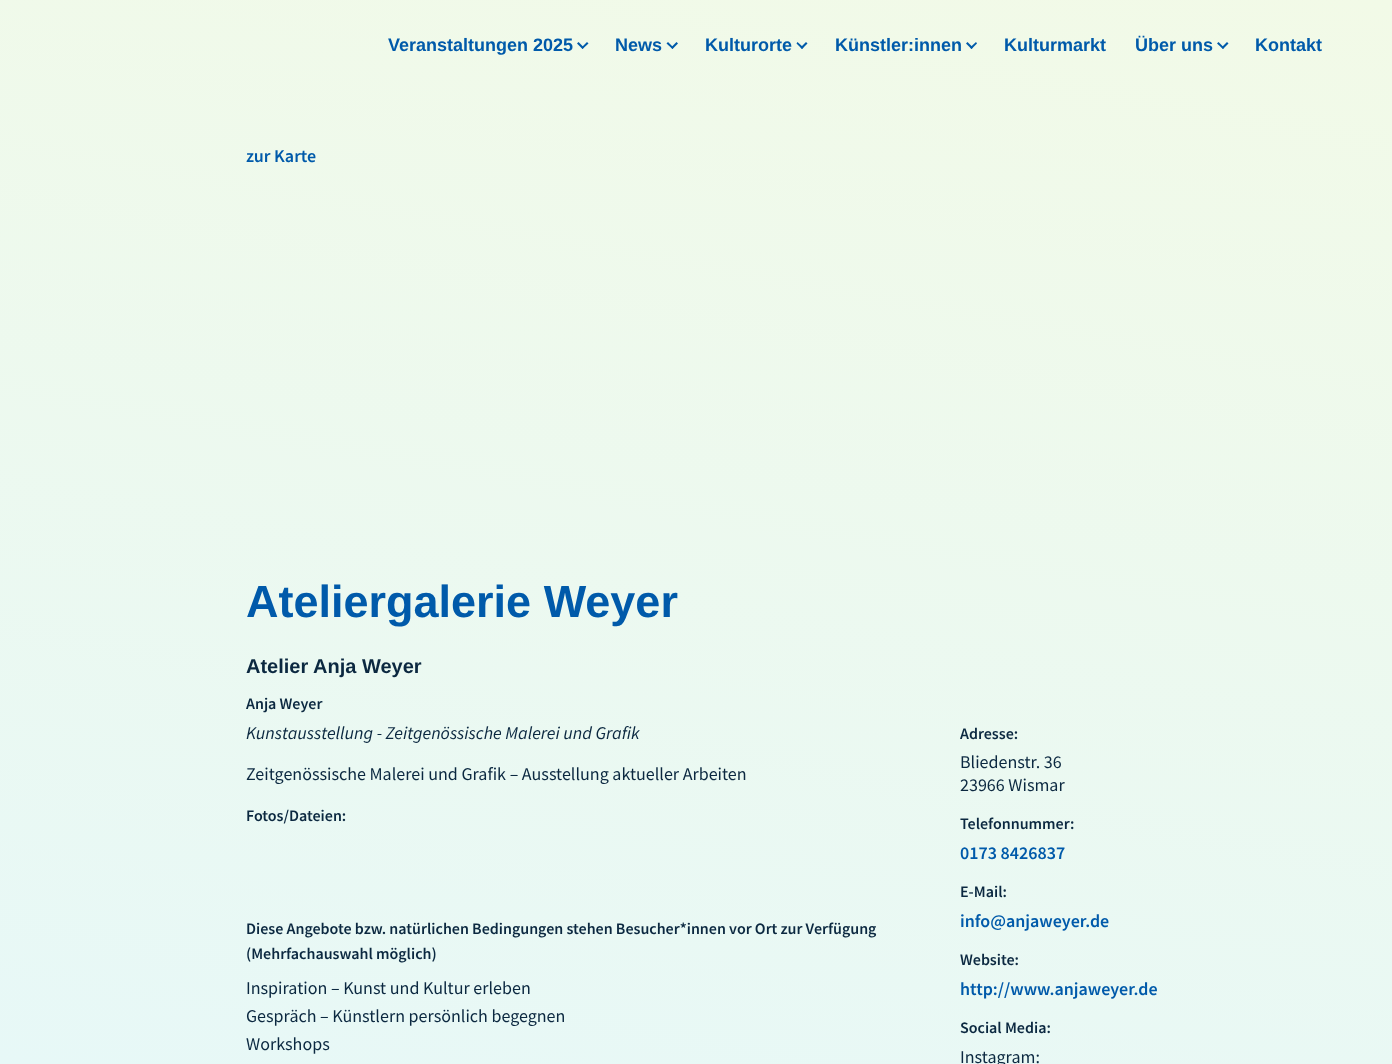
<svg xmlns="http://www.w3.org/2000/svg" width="1392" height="1064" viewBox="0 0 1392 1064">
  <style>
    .t1 { font: bold 18px Liberation Sans; fill: #005aaa; }
    .t2 { font: 600 18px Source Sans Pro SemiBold; fill: #005aaa; }
    .t3 { font: bold 45px Liberation Sans; fill: #005aaa; }
    .t4 { font: bold 20px Liberation Sans; fill: #0b2840; }
    .t5 { font: 600 16px Source Sans Pro SemiBold; fill: #0b2840; }
    .t6 { font: italic 18px Source Sans Pro; fill: #0b2840; }
    .t7 { font: 18px Source Sans Pro; fill: #0b2840; }
  </style>
  <defs>
    <linearGradient id="g1" gradientUnits="userSpaceOnUse" x1="584" y1="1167" x2="808" y2="-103"><stop offset="0" stop-color="#e7f8f7"/><stop offset="1" stop-color="#f2fae7"/></linearGradient>
  </defs>
  <rect width="100%" height="100%" fill="#fff"/>
  <rect x="0" y="0" width="1392" height="1064" fill="url(#g1)"/>
  <text x="388" y="51" class="t1">Veranstaltungen 2025</text>
  <path d="M587 42L588.5 43.5L582.5 49L581.5 47.5Z" fill="#005aaa"/>
  <path d="M578.5 42L584 47.5L582.5 49L577 43.5Z" fill="#005aaa"/>
  <text x="615" y="51" class="t1">News</text>
  <path d="M676.5 42L678 43.5L672.5 49L671 47.5Z" fill="#005aaa"/>
  <path d="M668 42L673.5 47.5L672.5 49L666.5 43.5Z" fill="#005aaa"/>
  <text x="705" y="51" class="t1">Kulturorte</text>
  <path d="M806 42L807.5 43.5L802 49L800.5 47.5Z" fill="#005aaa"/>
  <path d="M797.5 42L803.5 47.5L802 49L796.5 43.5Z" fill="#005aaa"/>
  <text x="835" y="51" class="t1">Künstler:innen</text>
  <path d="M976 42L977 43.5L971.5 49L970 47.5Z" fill="#005aaa"/>
  <path d="M967.5 42L973 47.5L971.5 49L966 43.5Z" fill="#005aaa"/>
  <text x="1004" y="51" class="t1">Kulturmarkt</text>
  <text x="1135" y="51" class="t1">Über uns</text>
  <path d="M1227 42L1228.5 43.5L1223 49L1221.5 47.5Z" fill="#005aaa"/>
  <path d="M1218.5 42L1224 47.5L1223 49L1217 43.5Z" fill="#005aaa"/>
  <text x="1255" y="51" class="t1">Kontakt</text>
  <text x="246" y="162" class="t2">zur Karte</text>
  <text x="246" y="617" class="t3">Ateliergalerie Weyer</text>
  <text x="246" y="673" class="t4">Atelier Anja Weyer</text>
  <text x="246" y="709" class="t5">Anja Weyer</text>
  <text x="246" y="739" class="t6">Kunstausstellung - Zeitgenössische Malerei und Grafik</text>
  <text x="246" y="780" class="t7">Zeitgenössische Malerei und Grafik – Ausstellung aktueller Arbeiten</text>
  <text x="246" y="821" class="t5">Fotos/Dateien:</text>
  <text x="246" y="934" class="t5">Diese Angebote bzw. natürlichen Bedingungen stehen Besucher*innen vor Ort zur Verfügung</text>
  <text x="246" y="959" class="t5">(Mehrfachauswahl möglich)</text>
  <text x="246" y="994" class="t7">Inspiration – Kunst und Kultur erleben</text>
  <text x="246" y="1022" class="t7">Gespräch – Künstlern persönlich begegnen</text>
  <text x="246" y="1050" class="t7">Workshops</text>
  <text x="960" y="739" class="t5">Adresse:</text>
  <text x="960" y="768" class="t7">Bliedenstr. 36</text>
  <text x="960" y="791" class="t7">23966 Wismar</text>
  <text x="960" y="829" class="t5">Telefonnummer:</text>
  <text x="960" y="859" class="t2">0173 8426837</text>
  <text x="960" y="897" class="t5">E-Mail:</text>
  <text x="960" y="927" class="t2">info@anjaweyer.de</text>
  <text x="960" y="965" class="t5">Website:</text>
  <text x="960" y="995" class="t2">http://www.anjaweyer.de</text>
  <text x="960" y="1033" class="t5">Social Media:</text>
  <text x="960" y="1063" class="t7">Instagram:</text>
</svg>
